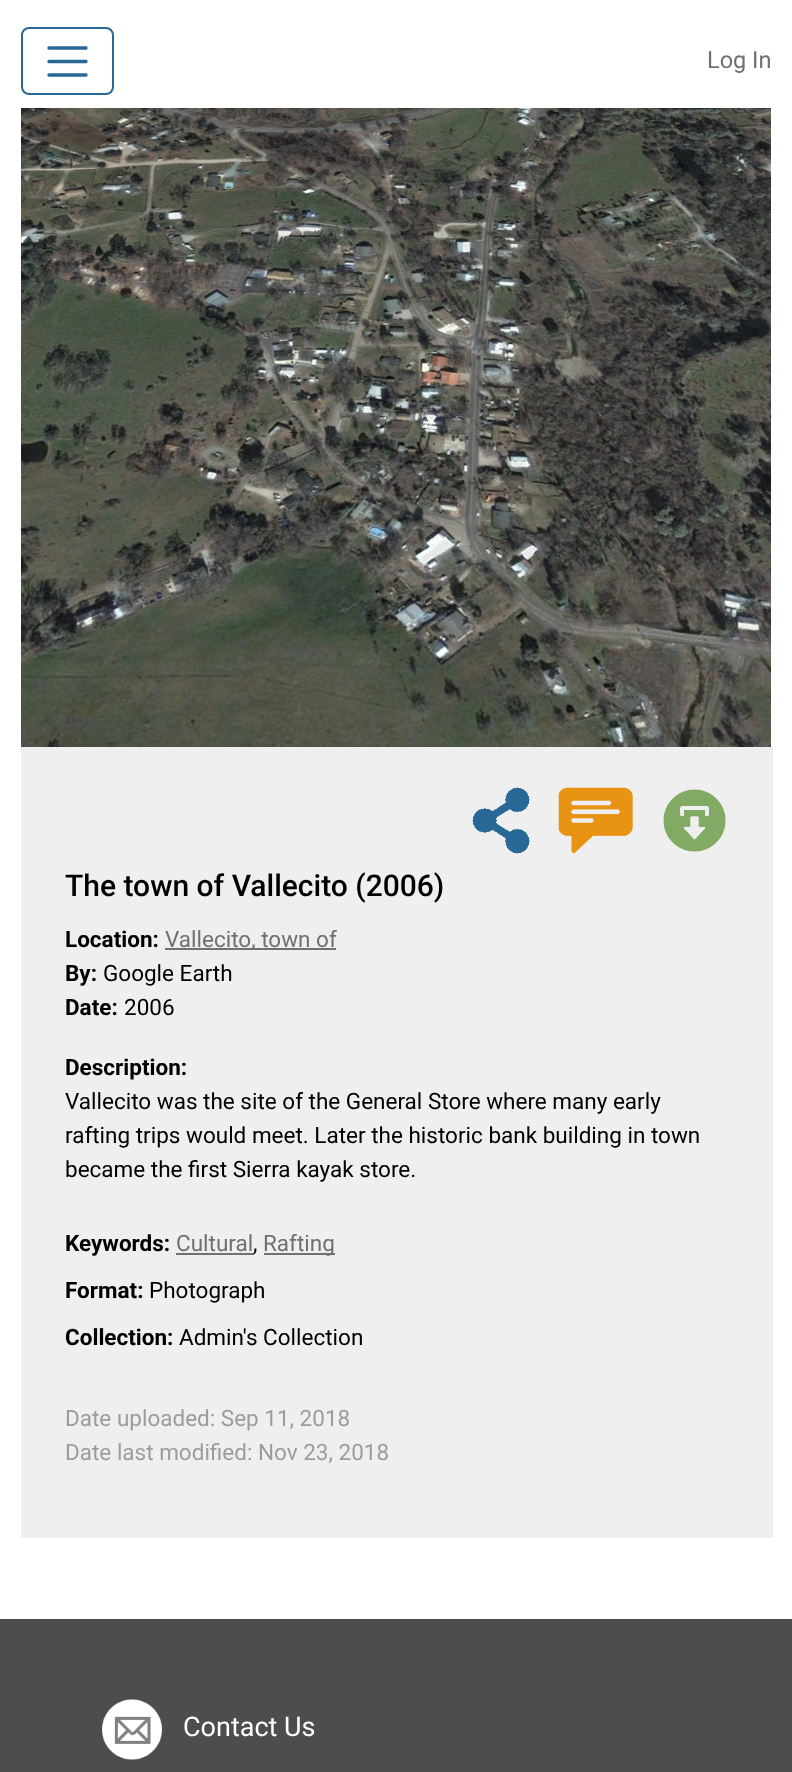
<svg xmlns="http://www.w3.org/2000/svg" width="792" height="1772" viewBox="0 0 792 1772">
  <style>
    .t1 { font: 23.5px Roboto; fill: #707070; }
    .t2 { font: 500 30px Roboto; fill: #000; }
    .t3 { font: bold 22.5px Roboto; fill: #000; }
    .t4 { font: 22.5px Roboto; fill: #707070; }
    .t5 { font: 22.5px Roboto; fill: #000; }
    .t6 { font: 22.5px Roboto; fill: #9c9c9c; }
    .t7 { font: 27px Roboto; fill: #fff; }
  </style>
  <rect width="100%" height="100%" fill="#fff"/>
  <rect x="22" y="28" width="91" height="66" rx="7" fill="none" stroke="#276896" stroke-width="2"/>
  <path d="M49 48H86M49 61.5H86M49 75H86" fill="none" stroke="#276896" stroke-width="3.4" stroke-linecap="round"/>
  <text x="707" y="68" class="t1">Log In</text>
  <image x="21" y="108" width="750" height="639" href="images/1.png"/>
  <rect x="21" y="747" width="752" height="791" fill="#efefef"/>
  <image x="472" y="787" width="58" height="67" href="images/2.png"/>
  <image x="558" y="787" width="75" height="67" href="images/3.png"/>
  <image x="663" y="789" width="63" height="63" href="images/4.png"/>
  <text x="65" y="896" class="t2">The town of Vallecito (2006)</text>
  <text x="65" y="947" class="t3">Location:</text>
  <rect x="165" y="948" width="171" height="2" fill="#707070"/>
  <text x="165" y="947" class="t4">Vallecito, town of</text>
  <text x="65" y="981" class="t3">By:</text>
  <text x="103" y="981" class="t5">Google Earth</text>
  <text x="65" y="1015" class="t3">Date:</text>
  <text x="124" y="1015" class="t5">2006</text>
  <text x="65" y="1075" class="t3">Description:</text>
  <text x="65" y="1109" class="t5">Vallecito was the site of the General Store where many early</text>
  <text x="65" y="1143" class="t5">rafting trips would meet. Later the historic bank building in town</text>
  <text x="65" y="1177" class="t5">became the first Sierra kayak store.</text>
  <text x="65" y="1251" class="t3">Keywords:</text>
  <text x="176" y="1251" class="t4">Cultural</text>
  <rect x="176" y="1253" width="78" height="2" fill="#707070"/>
  <text x="253" y="1251" class="t5">,</text>
  <rect x="264" y="1253" width="71" height="2" fill="#707070"/>
  <text x="263" y="1251" class="t4">Rafting</text>
  <text x="65" y="1298" class="t3">Format:</text>
  <text x="149" y="1298" class="t5">Photograph</text>
  <text x="65" y="1345" class="t3">Collection:</text>
  <text x="179" y="1345" class="t5">Admin's Collection</text>
  <text x="65" y="1426" class="t6">Date uploaded: Sep 11, 2018</text>
  <text x="65" y="1460" class="t6">Date last modified: Nov 23, 2018</text>
  <rect x="0" y="1619" width="792" height="153" fill="#4d4d4d"/>
  <image x="102" y="1699" width="60" height="61" href="images/5.png"/>
  <text x="183" y="1736" class="t7">Contact Us</text>
</svg>
